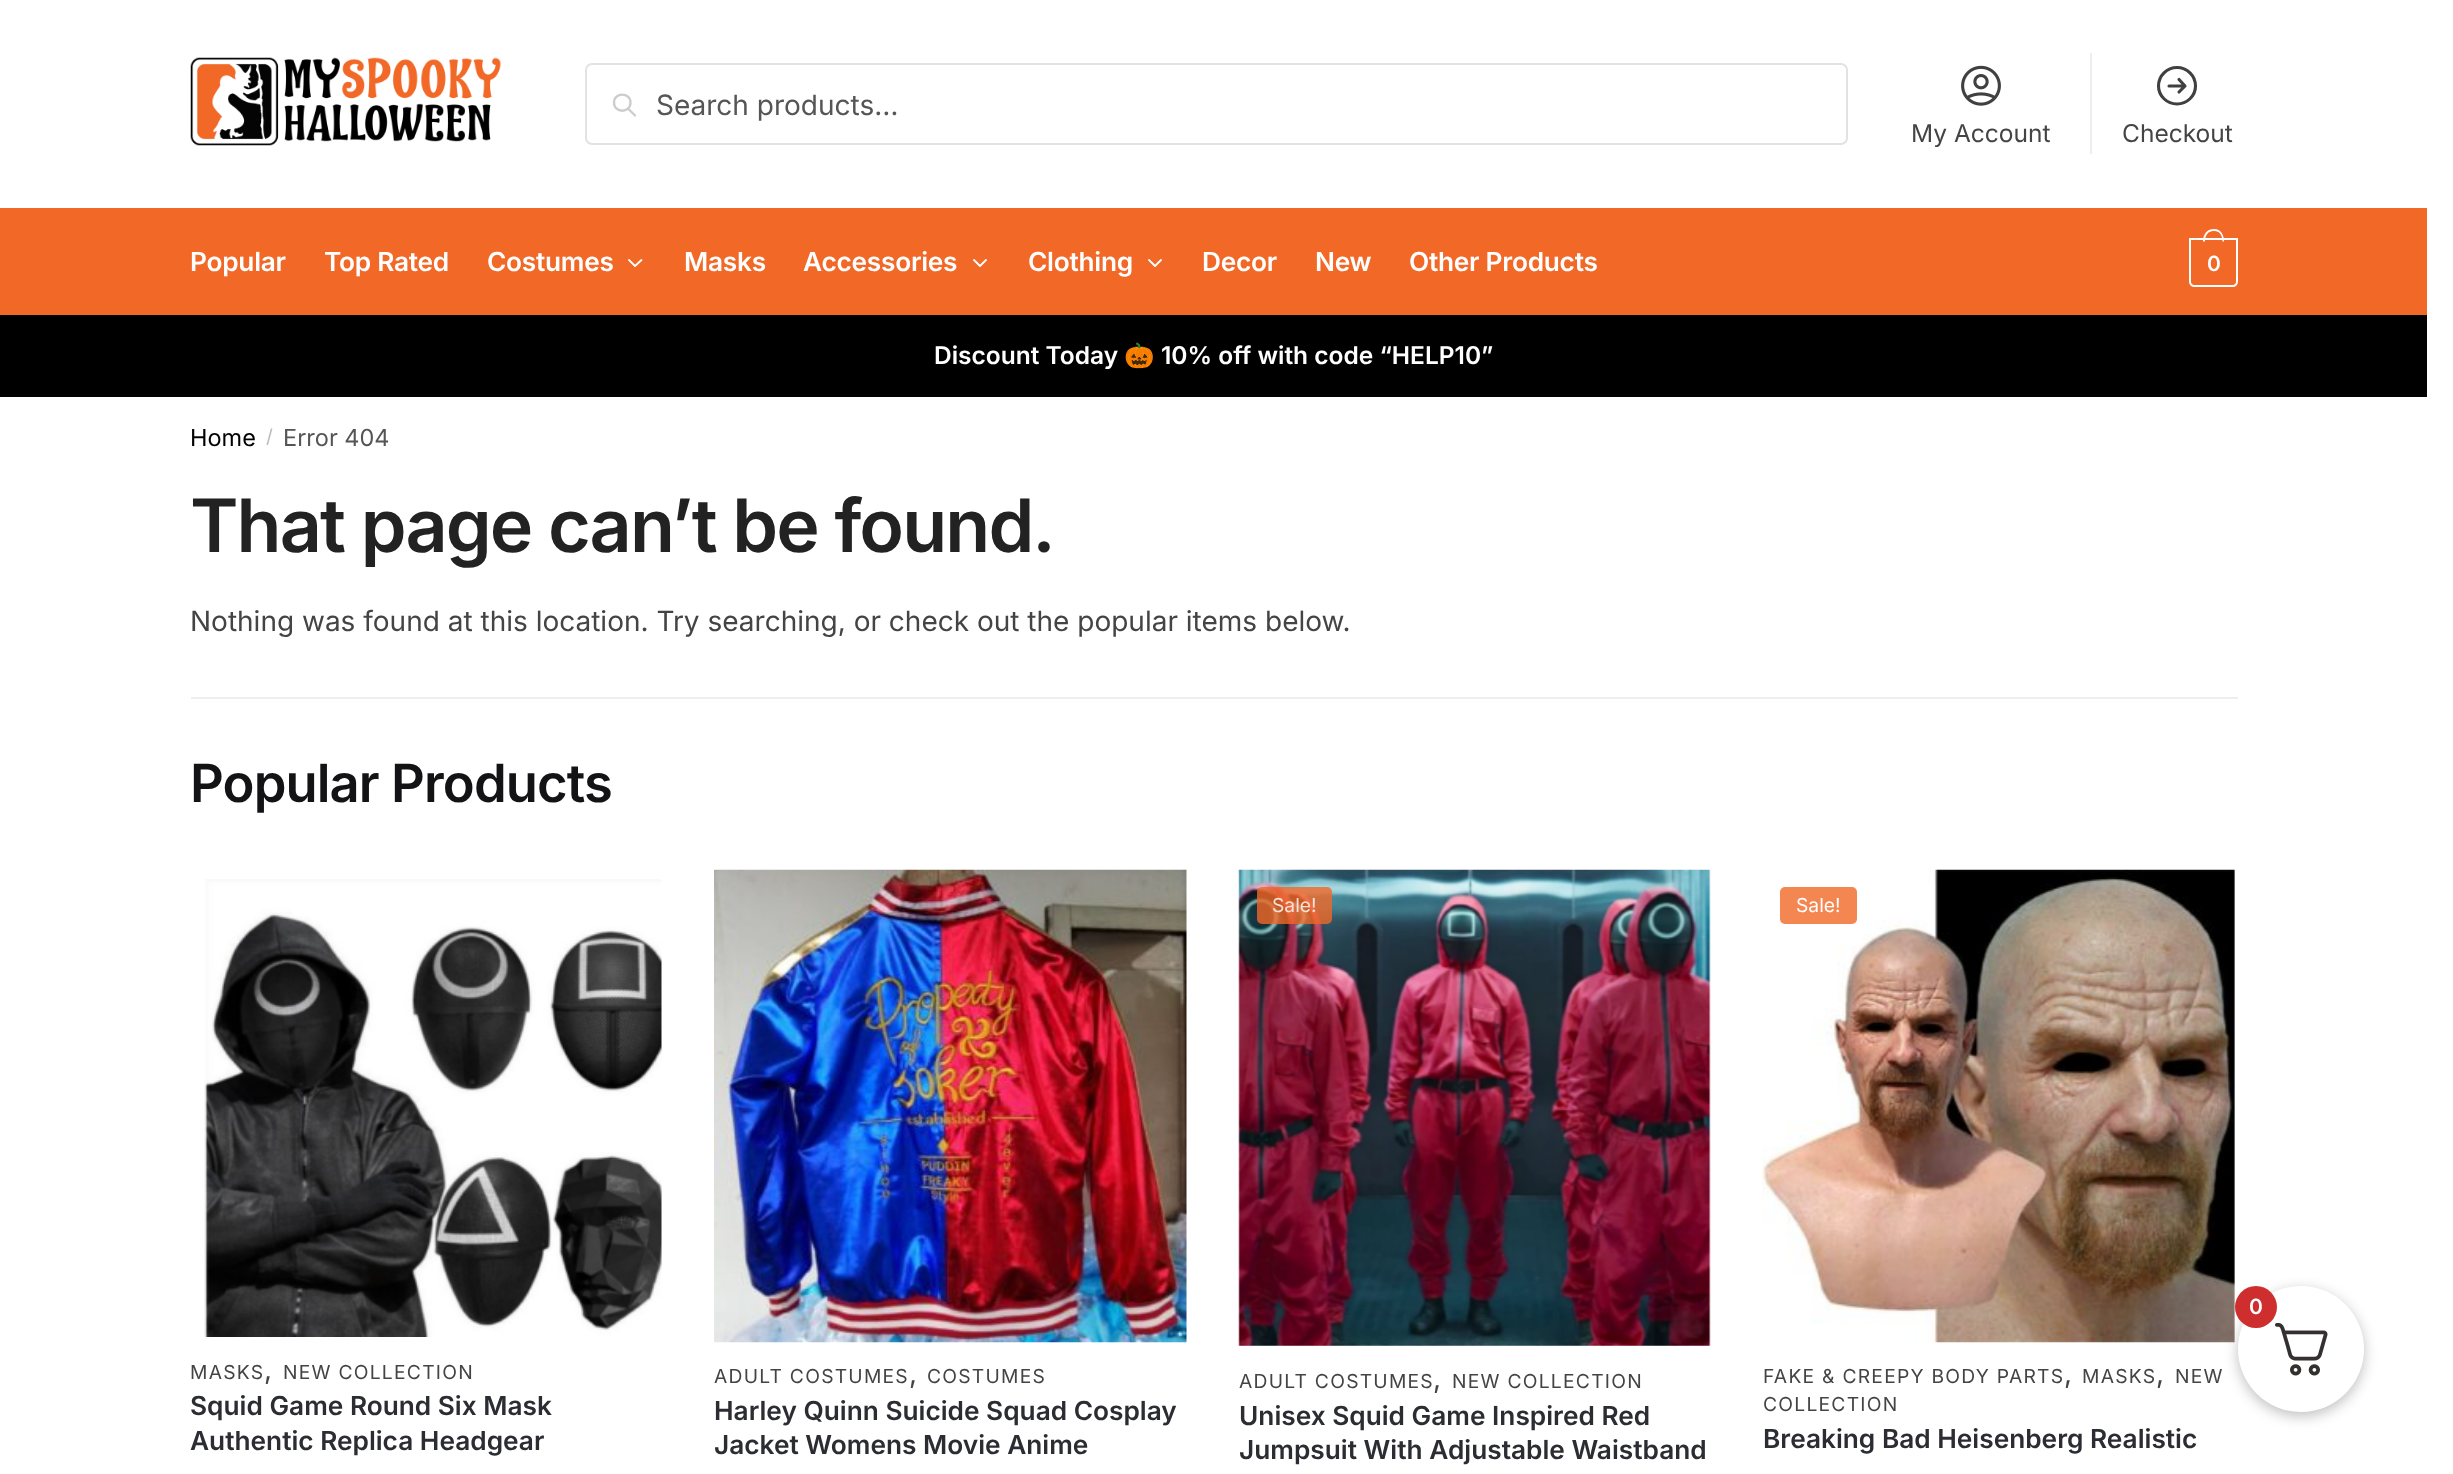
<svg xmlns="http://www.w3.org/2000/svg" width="2453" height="1474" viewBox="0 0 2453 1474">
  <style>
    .t1 { font: 28px Inter; fill: #555; }
    .t2 { font: 24.5px Inter; fill: #444; }
    .t3 { font: 600 26.25px Inter; letter-spacing: -0.25px; fill: #fff; }
    .t4 { font: 600 21px Inter; letter-spacing: -1px; fill: #fff; }
    .t5 { font: 600 24.5px Inter; fill: #fff; }
    .t6 { font: bold 24.5px Noto Color Emoji; fill: #fff; }
    .t7 { font: 23.5px Inter; fill: #000; }
    .t8 { font: 19px Inter; fill: #bbb; }
    .t9 { font: 23.5px Inter; fill: #555; }
    .t10 { font: 600 73.5px Inter; letter-spacing: -1.9px; fill: #222; }
    .t11 { font: 28px Inter; fill: #444; }
    .t12 { font: 600 52.5px Inter; letter-spacing: -0.9px; fill: #131315; }
    .t13 { font: 19.25px Inter; letter-spacing: 1.25px; fill: #444; }
    .t14 { font: 28px Inter; letter-spacing: 1.25px; fill: #444; }
    .t15 { font: 600 26.25px Inter; fill: #2c2d33; }
    .t16 { font: 19.25px Inter; fill: #f7e1d7; }
    .t17 { font: 19.25px Inter; fill: #fff; }
    .t18 { font: 600 21px Inter; fill: #fff; }
  </style>
  <rect width="100%" height="100%" fill="#fff"/>
  <image x="190" y="57" width="311" height="89" href="images/1.png"/>
  <rect x="586" y="64" width="1261" height="80" rx="6" fill="none" stroke="#e2e2e2" stroke-width="2"/>
  <path d="M635 115.5L628 108.5M630.5 102.5C630.5 113.5 614 113.5 614 102.5C614 92 630.5 92 630.5 102.5Z" fill="none" stroke="#ccc" stroke-width="2.3" stroke-linecap="round" stroke-linejoin="round"/>
  <text x="656" y="115" class="t1">Search products…</text>
  <image x="1961" y="65" width="40" height="41" href="images/2.png"/>
  <text x="1911" y="142" class="t2">My Account</text>
  <rect x="2090" y="53" width="2" height="101" fill="#eee"/>
  <path d="M2179 79.5L2185 86M2185 86L2179 92M2185 86H2169M2195.5 86C2195.5 96 2187 104 2177 104C2167 104 2158.5 96 2158.5 86C2158.5 75.5 2167 67.5 2177 67.5C2187 67.5 2195.5 75.5 2195.5 86Z" fill="none" stroke="#404040" stroke-width="3.1" stroke-linecap="round" stroke-linejoin="round"/>
  <text x="2122" y="142" class="t2">Checkout</text>
  <rect x="0" y="208" width="2427" height="107" fill="#f16827"/>
  <text x="190" y="271" class="t3">Popular</text>
  <text x="324" y="271" class="t3">Top Rated</text>
  <text x="487" y="271" class="t3">Costumes</text>
  <path d="M641.5 260L635 266L629 260" fill="none" stroke="#fff" stroke-width="1.8" stroke-linecap="round" stroke-linejoin="round"/>
  <text x="684" y="271" class="t3">Masks</text>
  <text x="803" y="271" class="t3">Accessories</text>
  <path d="M986 260L980 266L974 260" fill="none" stroke="#fff" stroke-width="1.8" stroke-linecap="round" stroke-linejoin="round"/>
  <text x="1028" y="271" class="t3">Clothing</text>
  <path d="M1161 260L1155 266L1149 260" fill="none" stroke="#fff" stroke-width="1.8" stroke-linecap="round" stroke-linejoin="round"/>
  <text x="1202" y="271" class="t3">Decor</text>
  <text x="1315" y="271" class="t3">New</text>
  <text x="1409" y="271" class="t3">Other Products</text>
  <path d="M2190 239H2237V282C2237 284 2235 286 2233 286H2194C2192 286 2190 284 2190 282Z" fill="none" stroke="#fff" stroke-width="2"/>
  <path d="M2214 229C2221 229 2224 235 2224 241.5H2203C2203 235 2206.5 229 2214 229ZM2214 231C2220 231 2222.5 236 2222.5 241.5H2205C2205 236 2207.5 231 2214 231Z" fill="#fff" fill-rule="evenodd"/>
  <text x="2207" y="271" class="t4">0</text>
  <rect x="0" y="315" width="2427" height="82" fill="#000"/>
  <text x="934" y="364" class="t5">Discount Today</text>
  <text x="1124" y="364" class="t6">🎃</text>
  <text x="1161" y="364" class="t5">10% off with code “HELP10”</text>
  <text x="190" y="446" class="t7">Home</text>
  <text x="266" y="443" class="t8">/</text>
  <text x="283" y="446" class="t9">Error 404</text>
  <text x="190" y="552" class="t10">That page can’t be found.</text>
  <text x="190" y="631" class="t11">Nothing was found at this location. Try searching, or check out the popular items below.</text>
  <rect x="191" y="697" width="2047" height="2" fill="#eee"/>
  <text x="190" y="802" class="t12">Popular Products</text>
  <image x="204" y="879" width="458" height="458" href="images/3.png"/>
  <text x="190" y="1379" class="t13">MASKS</text>
  <text x="264" y="1379" class="t14">,</text>
  <text x="283" y="1379" class="t13">NEW COLLECTION</text>
  <text x="190" y="1415" class="t15">Squid Game Round Six Mask</text>
  <text x="190" y="1450" class="t15">Authentic Replica Headgear</text>
  <image x="714" y="869" width="473" height="474" href="images/4.png"/>
  <text x="714" y="1383" class="t13">ADULT COSTUMES</text>
  <text x="909" y="1383" class="t14">,</text>
  <text x="927" y="1383" class="t13">COSTUMES</text>
  <text x="714" y="1420" class="t15">Harley Quinn Suicide Squad Cosplay</text>
  <text x="714" y="1454" class="t15">Jacket Womens Movie Anime</text>
  <image x="1238" y="869" width="473" height="477" href="images/5.png"/>
  <rect x="1257" y="887" width="75" height="37" rx="5" fill="#f16827cc"/>
  <text x="1272" y="912" class="t16">Sale!</text>
  <text x="1239" y="1388" class="t13">ADULT COSTUMES</text>
  <text x="1433" y="1388" class="t14">,</text>
  <text x="1452" y="1388" class="t13">NEW COLLECTION</text>
  <text x="1239" y="1425" class="t15">Unisex Squid Game Inspired Red</text>
  <text x="1239" y="1459" class="t15">Jumpsuit With Adjustable Waistband</text>
  <image x="1762" y="869" width="473" height="474" href="images/6.png"/>
  <rect x="1780" y="887" width="77" height="37" rx="5" fill="#f48652"/>
  <text x="1796" y="912" class="t17">Sale!</text>
  <text x="1763" y="1383" class="t13">FAKE &amp; CREEPY BODY PARTS</text>
  <text x="2082" y="1383" class="t13">MASKS</text>
  <text x="2175" y="1383" class="t13">NEW</text>
  <text x="2064" y="1383" class="t14">,</text>
  <text x="2156" y="1383" class="t14">,</text>
  <text x="1763" y="1411" class="t13">COLLECTION</text>
  <text x="1763" y="1448" class="t15">Breaking Bad Heisenberg Realistic</text>
  <rect x="2238" y="1290" width="126" height="126" rx="63" fill="#00000040" filter="blur(7px)"/>
  <circle cx="2301" cy="1349" r="63" fill="#fff"/>
  <image x="2275" y="1323" width="53" height="53" href="images/7.png"/>
  <circle cx="2256" cy="1307" r="21" fill="#cf2e2e"/>
  <text x="2249" y="1314" class="t18">0</text>
</svg>
